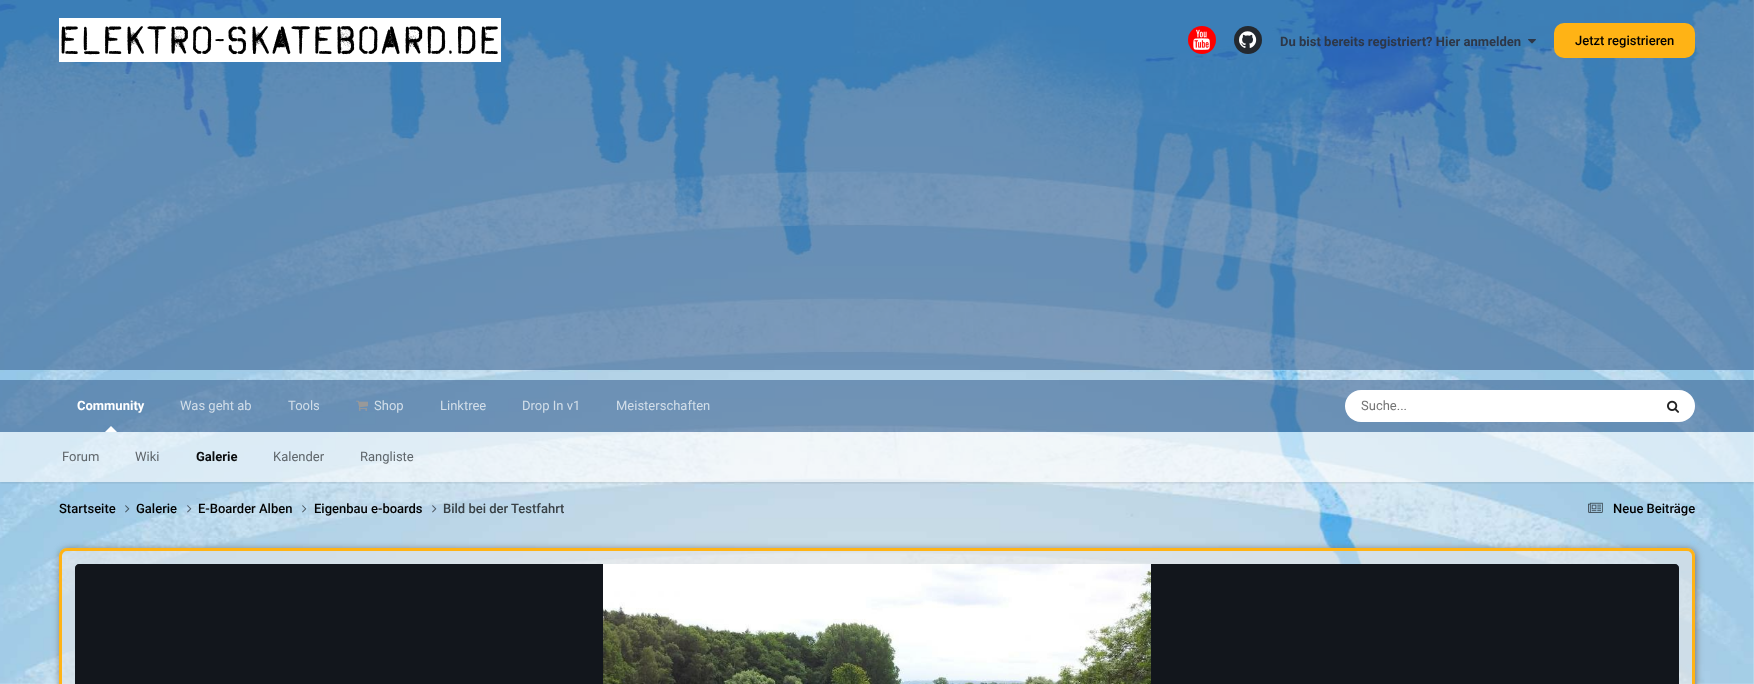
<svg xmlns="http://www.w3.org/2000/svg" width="1754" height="684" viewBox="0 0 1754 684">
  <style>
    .t1 { font: 40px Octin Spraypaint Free; letter-spacing: 2px; fill: #000; }
    .t2 { font: bold 13px Roboto; fill: #2d3748; }
    .t3 { font: 500 13px Roboto; fill: #000; }
    .t4 { font: bold 13px Roboto; fill: #fff; }
    .t5 { font: 13px Roboto; fill: #5f666b; }
    .t6 { font: bold 13px Roboto; fill: #0a0c0d; }
    .t7 { font: 13px Roboto; fill: #d2dee9; }
    .t8 { font: 13px Roboto; fill: #757575; }
    .t9 { font: 500 13px Roboto; fill: #384045; }
  </style>
  <defs>
    <clipPath id="clip1"><rect x="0" y="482" width="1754" height="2"/></clipPath>
    <clipPath id="clip2"><path d="M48 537H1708V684H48ZM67 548H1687C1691.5 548 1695 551.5 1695 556V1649C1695 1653.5 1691.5 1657 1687 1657H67C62.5 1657 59 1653.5 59 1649V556C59 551.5 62.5 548 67 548Z" clip-rule="evenodd"/></clipPath>
  </defs>
  <rect width="100%" height="100%" fill="#fff"/>
  <image x="0" y="0" width="1754" height="684" href="images/1.png"/>
  <rect x="0" y="0" width="1754" height="370" fill="#3d659499"/>
  <rect x="59" y="18" width="442" height="44" fill="#fff"/>
  <text x="59" y="54" class="t1">elektro-skateboard.de</text>
  <circle cx="1202" cy="40" r="14" fill="#f00"/>
  <image x="1193" y="29" width="17" height="21" href="images/2.png"/>
  <circle cx="1248" cy="40" r="14" fill="#24292f"/>
  <image x="1239" y="31" width="18" height="17" href="images/3.png"/>
  <text x="1280" y="46" class="t2">Du bist bereits registriert? Hier anmelden</text>
  <image x="1528" y="39" width="8" height="5" href="images/4.png"/>
  <rect x="1554" y="23" width="141" height="35" rx="10" fill="#ffb315"/>
  <text x="1575" y="45" class="t3">Jetzt registrieren</text>
  <rect x="0" y="380" width="1754" height="52" fill="#3d659499"/>
  <text x="77" y="410" class="t4">Community</text>
  <g clip-path="url(#clip1)">
    <rect x="0" y="433" width="1754" height="50" fill="#0000001a" filter="blur(1px)"/>
  </g>
  <path d="M117 432H105L111 426Z" fill="#fff"/>
  <rect x="0" y="432" width="1754" height="50" fill="#ffffff99"/>
  <text x="62" y="461" class="t5">Forum</text>
  <text x="135" y="461" class="t5">Wiki</text>
  <text x="196" y="461" class="t6">Galerie</text>
  <text x="273" y="461" class="t5">Kalender</text>
  <text x="360" y="461" class="t5">Rangliste</text>
  <text x="180" y="410" class="t7">Was geht ab</text>
  <text x="288" y="410" class="t7">Tools</text>
  <image x="356" y="400" width="12" height="11" href="images/5.png"/>
  <text x="374" y="410" class="t7">Shop</text>
  <text x="440" y="410" class="t7">Linktree</text>
  <text x="522" y="410" class="t7">Drop In v1</text>
  <text x="616" y="410" class="t7">Meisterschaften</text>
  <rect x="1345" y="390" width="350" height="32" rx="16" fill="#fff"/>
  <text x="1361" y="410" class="t8">Suche...</text>
  <image x="1667" y="400" width="12" height="13" href="images/6.png"/>
  <text x="59" y="513" class="t3">Startseite</text>
  <image x="125" y="505" width="5" height="8" href="images/7.png"/>
  <text x="136" y="513" class="t3">Galerie</text>
  <image x="187" y="505" width="5" height="8" href="images/8.png"/>
  <text x="198" y="513" class="t3">E-Boarder Alben</text>
  <image x="302" y="505" width="5" height="8" href="images/9.png"/>
  <text x="314" y="513" class="t3">Eigenbau e-boards</text>
  <image x="432" y="505" width="5" height="8" href="images/10.png"/>
  <text x="443" y="513" class="t9">Bild bei der Testfahrt</text>
  <image x="1588" y="502" width="15" height="11" href="images/11.png"/>
  <text x="1613" y="513" class="t3">Neue Beiträge</text>
  <g clip-path="url(#clip2)">
    <rect x="60" y="549" width="1636" height="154" rx="8" fill="#777" filter="blur(3.5px)"/>
  </g>
  <rect x="60.5" y="549.5" width="1633" height="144" rx="6.5" fill="#e8e8e899" stroke="#ffb315" stroke-width="3"/>
  <path d="M79 564H1675C1677 564 1679 566 1679 568V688H75V568C75 566 77 564 79 564Z" fill="#2d3748"/>
  <path d="M79 564H1675C1677 564 1679 566 1679 568V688H75V568C75 566 77 564 79 564Z" fill="#00000099"/>
  <image x="603" y="564" width="548" height="120" href="images/12.png"/>
</svg>
